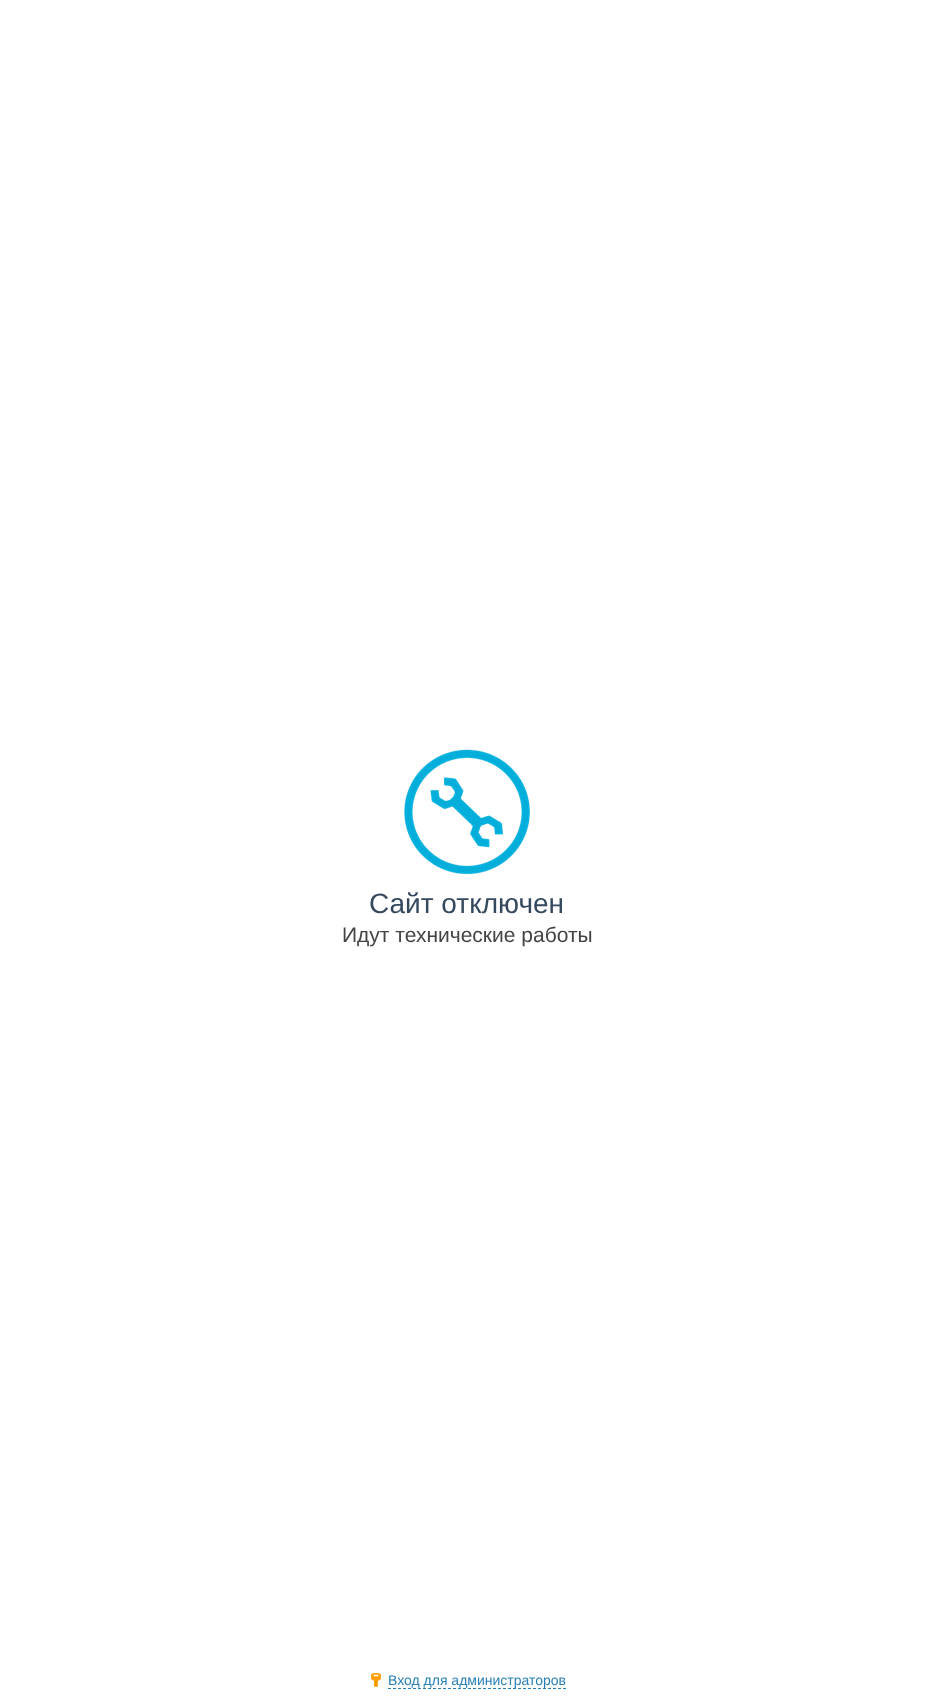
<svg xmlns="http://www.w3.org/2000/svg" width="934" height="1705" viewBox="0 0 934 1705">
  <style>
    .t1 { font: 28px Liberation Sans; fill: #34495e; }
    .t2 { font: 21px Liberation Sans; fill: #444; }
    .t3 { font: 14px Liberation Sans; fill: #2980b9; }
  </style>
  <rect width="100%" height="100%" fill="#fff"/>
  <image x="404" y="749" width="126" height="126" href="images/1.png"/>
  <text x="369" y="913" class="t1">Сайт отключен</text>
  <text x="342" y="942" class="t2">Идут технические работы</text>
  <image x="371" y="1673" width="10" height="14" href="images/2.png"/>
  <text x="388" y="1685" class="t3">Вход для администраторов</text>
  <path d="M388 1688.5H566" fill="none" stroke="#2980b9" stroke-dasharray="3 2"/>
</svg>
